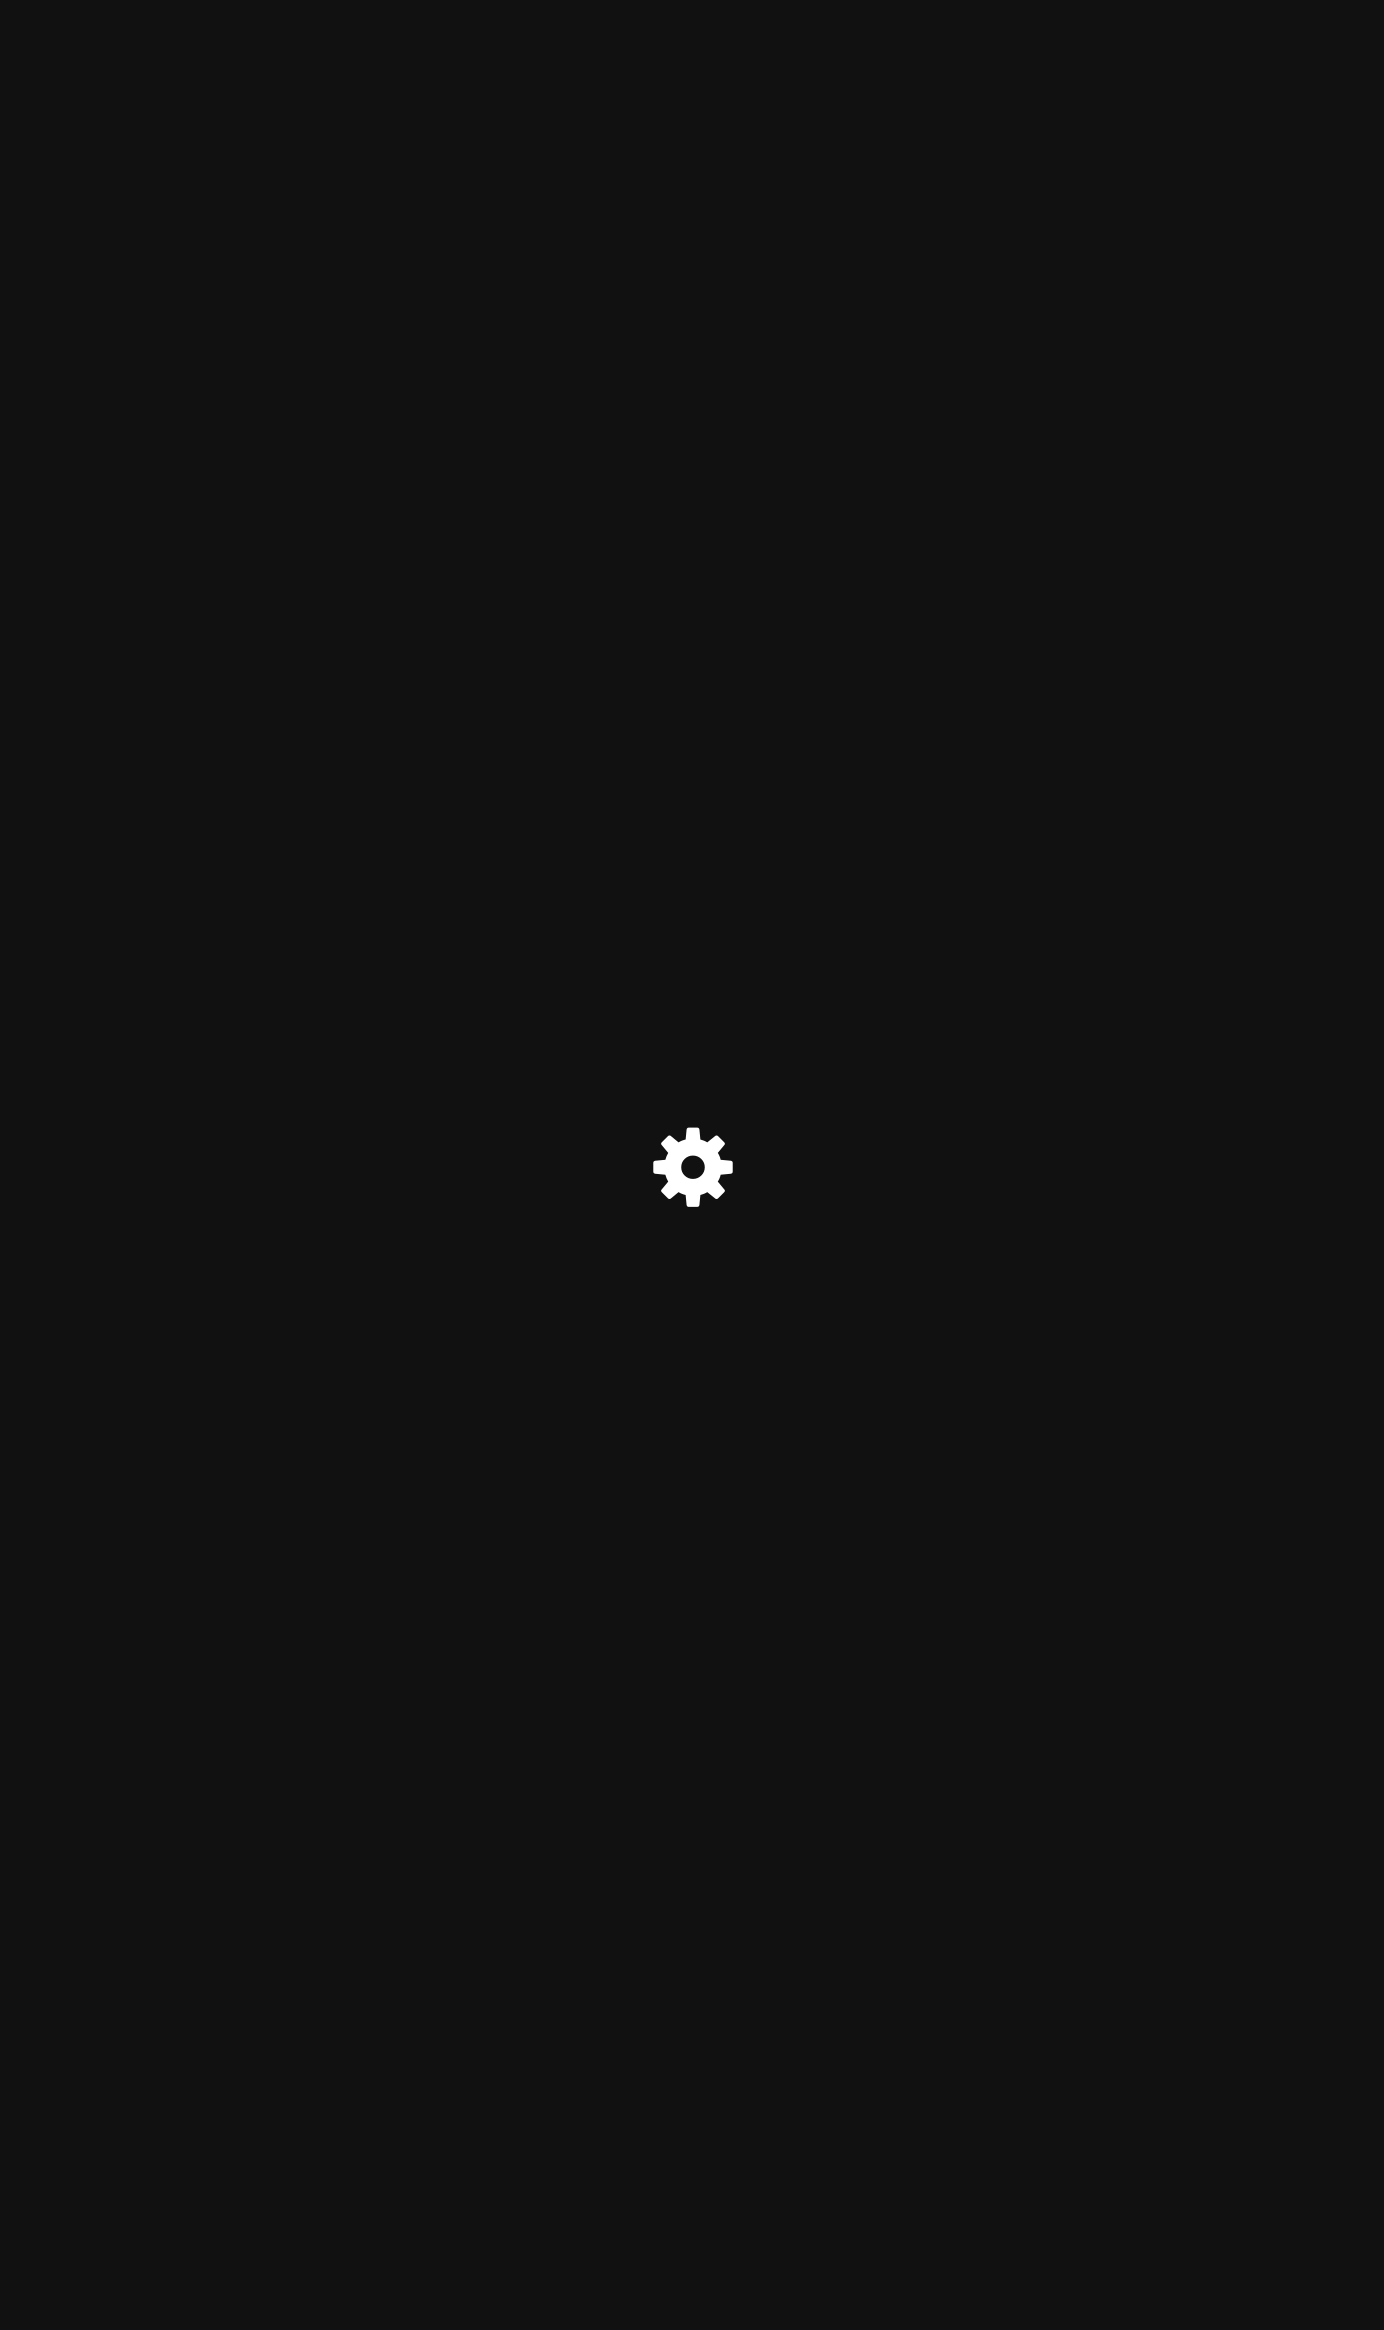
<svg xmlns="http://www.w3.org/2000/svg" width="1384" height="2330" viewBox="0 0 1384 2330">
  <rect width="100%" height="100%" fill="#111"/>
  <image x="653" y="1127" width="80" height="80" href="images/1.png"/>
</svg>
